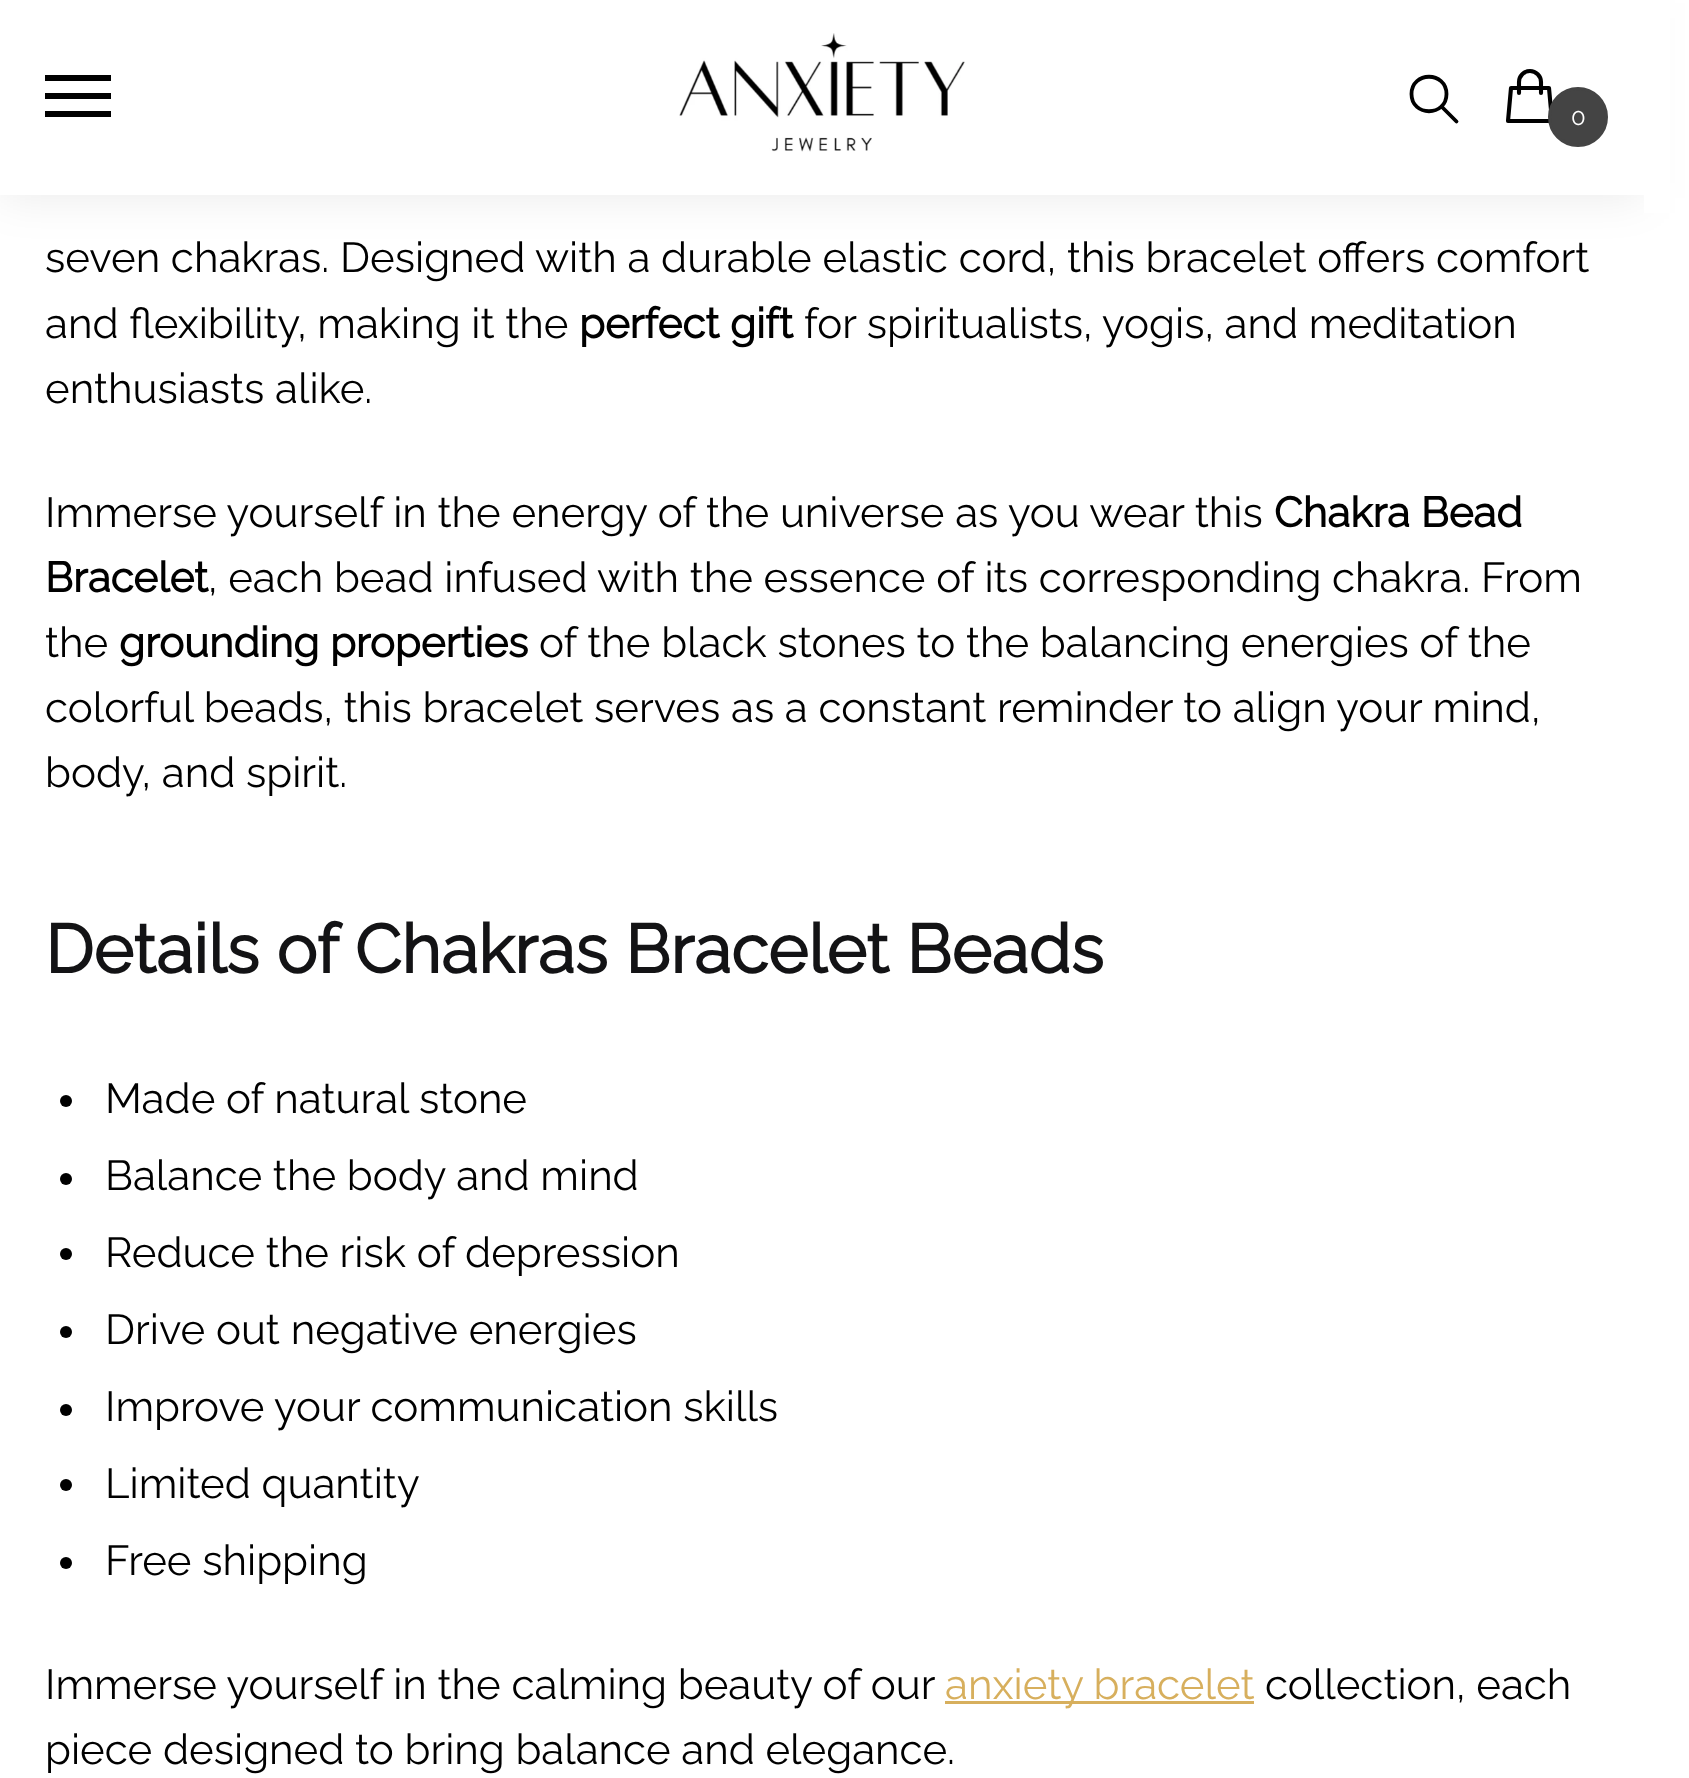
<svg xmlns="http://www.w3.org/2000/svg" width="1689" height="1778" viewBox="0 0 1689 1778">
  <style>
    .t1 { font: 100 24px Raleway; fill: #fff; }
    .t2 { font: 100 42px Raleway; fill: #000; }
    .t3 { font: bold 42px Raleway; fill: #000; }
    .t4 { font: bold 68px Raleway; fill: #131315; }
    .t5 { font: 100 42px Raleway; fill: #d7af5d; }
  </style>
  <rect width="100%" height="100%" fill="#fff"/>
  <rect x="0" y="3" width="1644" height="195" fill="#00000014" filter="blur(22.5px)"/>
  <rect x="0" y="0" width="1644" height="195" fill="#fff"/>
  <rect x="45" y="75" width="66" height="6" fill="#000"/>
  <rect x="45" y="93" width="66" height="6" fill="#000"/>
  <rect x="45" y="111" width="66" height="6" fill="#000"/>
  <image x="679" y="33" width="286" height="119" href="images/1.png"/>
  <path d="M1456.5 121.5L1441.5 106.5M1446.5 94C1446.5 117 1411.5 117 1411.5 94C1411.5 71 1446.5 71 1446.5 94Z" fill="none" stroke="#000" stroke-width="3.8" stroke-linecap="round" stroke-linejoin="round"/>
  <path d="M1541 93V82C1541 76 1536 71 1530 71C1524 71 1519 76 1519 82V93M1511 88H1549L1552 121H1508Z" fill="none" stroke="#000" stroke-width="4.1" stroke-linecap="round" stroke-linejoin="round"/>
  <circle cx="1578" cy="117" r="28.5" fill="#444" stroke="#444" stroke-width="3"/>
  <text x="1571" y="125" class="t1">0</text>
  <rect x="1644" y="0" width="26" height="213" fill="#fff"/>
  <text x="45" y="272" class="t2">seven chakras. Designed with a durable elastic cord, this bracelet offers comfort</text>
  <text x="45" y="338" class="t2">and flexibility, making it the</text>
  <text x="579" y="338" class="t3">perfect gift</text>
  <text x="804" y="338" class="t2">for spiritualists, yogis, and meditation</text>
  <text x="45" y="403" class="t2">enthusiasts alike.</text>
  <text x="45" y="527" class="t2">Immerse yourself in the energy of the universe as you wear this</text>
  <text x="1274" y="527" class="t3">Chakra Bead</text>
  <text x="45" y="592" class="t3">Bracelet</text>
  <text x="208" y="592" class="t2">, each bead infused with the essence of its corresponding chakra. From</text>
  <text x="45" y="657" class="t2">the</text>
  <text x="119" y="657" class="t3">grounding properties</text>
  <text x="539" y="657" class="t2">of the black stones to the balancing energies of the</text>
  <text x="45" y="722" class="t2">colorful beads, this bracelet serves as a constant reminder to align your mind,</text>
  <text x="45" y="787" class="t2">body, and spirit.</text>
  <text x="45" y="973" class="t4">Details of Chakras Bracelet Beads</text>
  <circle cx="66" cy="1101" r="6" fill="#000"/>
  <text x="105" y="1113" class="t2">Made of natural stone</text>
  <circle cx="66" cy="1179" r="6" fill="#000"/>
  <text x="105" y="1190" class="t2">Balance the body and mind</text>
  <circle cx="66" cy="1254" r="6" fill="#000"/>
  <text x="105" y="1267" class="t2">Reduce the risk of depression</text>
  <circle cx="66" cy="1332" r="6" fill="#000"/>
  <text x="105" y="1344" class="t2">Drive out negative energies</text>
  <circle cx="66" cy="1410" r="6" fill="#000"/>
  <text x="105" y="1421" class="t2">Improve your communication skills</text>
  <circle cx="66" cy="1485" r="6" fill="#000"/>
  <text x="105" y="1498" class="t2">Limited quantity</text>
  <circle cx="66" cy="1563" r="6" fill="#000"/>
  <text x="105" y="1575" class="t2">Free shipping</text>
  <text x="45" y="1699" class="t2">Immerse yourself in the calming beauty of our</text>
  <rect x="945" y="1701" width="309" height="3" fill="#d7af5d"/>
  <text x="945" y="1699" class="t5">anxiety bracelet</text>
  <text x="1265" y="1699" class="t2">collection, each</text>
  <text x="45" y="1764" class="t2">piece designed to bring balance and elegance.</text>
</svg>
